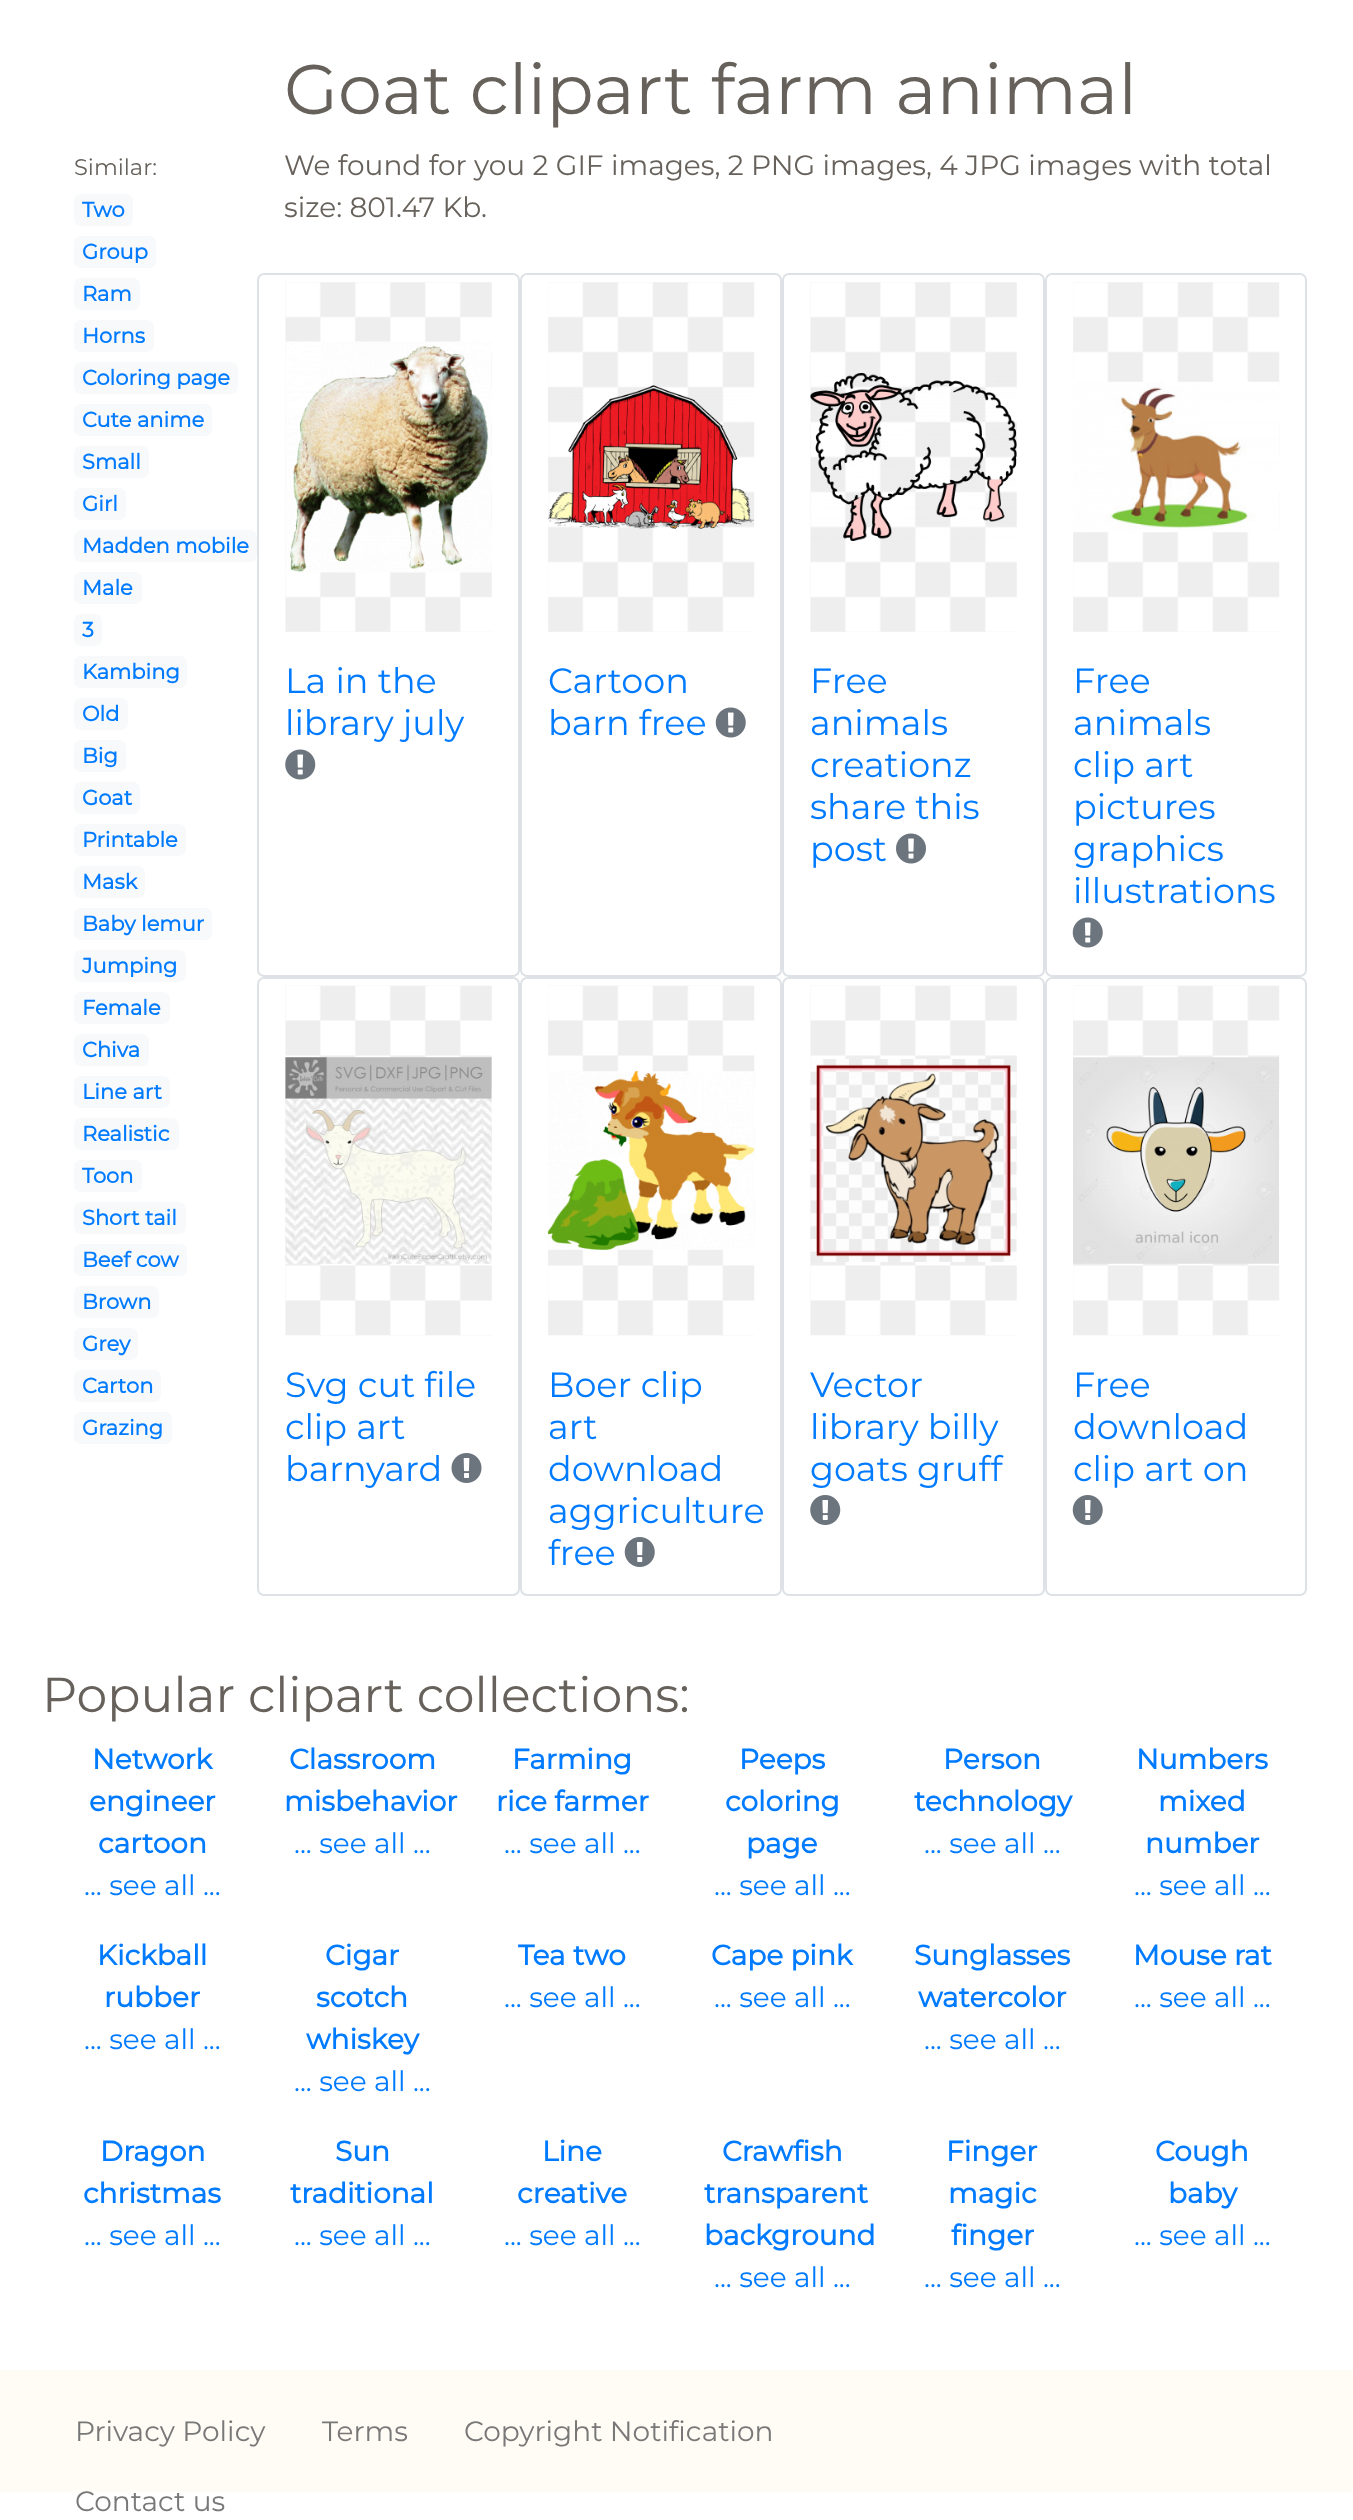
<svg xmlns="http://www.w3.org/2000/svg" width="1353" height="2520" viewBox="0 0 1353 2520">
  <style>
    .t1 { font: 100 70px Montserrat; fill: #67615b; }
    .t2 { font: 100 22.5px Montserrat; fill: #67615b; }
    .t3 { font: bold 21px Montserrat; fill: #007bff; }
    .t4 { font: 100 28px Montserrat; fill: #67615b; }
    .t5 { font: 100 35px Montserrat; fill: #007bff; }
    .t6 { font: 100 49px Montserrat; fill: #67615b; }
    .t7 { font: bold 28px Montserrat; fill: #007bff; }
    .t8 { font: 100 28px Montserrat; fill: #007bff; }
    .t9 { font: 100 28px Montserrat; fill: #787878; }
  </style>
  <rect width="100%" height="100%" fill="#fff"/>
  <text x="284" y="114" class="t1">Goat clipart farm animal</text>
  <text x="74" y="175" class="t2">Similar:</text>
  <rect x="74" y="194" width="59" height="32" rx="7" fill="#f8f9fa"/>
  <text x="82" y="217" class="t3">Two</text>
  <rect x="74" y="236" width="82" height="32" rx="7" fill="#f8f9fa"/>
  <text x="82" y="259" class="t3">Group</text>
  <rect x="74" y="278" width="66" height="32" rx="7" fill="#f8f9fa"/>
  <text x="82" y="301" class="t3">Ram</text>
  <rect x="74" y="320" width="80" height="32" rx="7" fill="#f8f9fa"/>
  <text x="82" y="343" class="t3">Horns</text>
  <rect x="74" y="362" width="164" height="32" rx="7" fill="#f8f9fa"/>
  <text x="82" y="385" class="t3">Coloring page</text>
  <rect x="74" y="404" width="138" height="32" rx="7" fill="#f8f9fa"/>
  <text x="82" y="427" class="t3">Cute anime</text>
  <rect x="74" y="446" width="75" height="32" rx="7" fill="#f8f9fa"/>
  <text x="82" y="469" class="t3">Small</text>
  <rect x="74" y="488" width="52" height="32" rx="7" fill="#f8f9fa"/>
  <text x="82" y="511" class="t3">Girl</text>
  <rect x="74" y="530" width="183" height="32" rx="7" fill="#f8f9fa"/>
  <text x="82" y="553" class="t3">Madden mobile</text>
  <rect x="74" y="572" width="68" height="32" rx="7" fill="#f8f9fa"/>
  <text x="82" y="595" class="t3">Male</text>
  <rect x="74" y="614" width="28" height="32" rx="7" fill="#f8f9fa"/>
  <text x="82" y="637" class="t3">3</text>
  <rect x="74" y="656" width="113" height="32" rx="7" fill="#f8f9fa"/>
  <text x="82" y="679" class="t3">Kambing</text>
  <rect x="74" y="698" width="54" height="32" rx="7" fill="#f8f9fa"/>
  <text x="82" y="721" class="t3">Old</text>
  <rect x="74" y="740" width="52" height="32" rx="7" fill="#f8f9fa"/>
  <text x="82" y="763" class="t3">Big</text>
  <rect x="74" y="782" width="66" height="32" rx="7" fill="#f8f9fa"/>
  <text x="82" y="805" class="t3">Goat</text>
  <rect x="74" y="824" width="112" height="32" rx="7" fill="#f8f9fa"/>
  <text x="82" y="847" class="t3">Printable</text>
  <rect x="74" y="866" width="71" height="32" rx="7" fill="#f8f9fa"/>
  <text x="82" y="889" class="t3">Mask</text>
  <rect x="74" y="908" width="138" height="32" rx="7" fill="#f8f9fa"/>
  <text x="82" y="931" class="t3">Baby lemur</text>
  <rect x="74" y="950" width="112" height="32" rx="7" fill="#f8f9fa"/>
  <text x="82" y="973" class="t3">Jumping</text>
  <rect x="74" y="992" width="96" height="32" rx="7" fill="#f8f9fa"/>
  <text x="82" y="1015" class="t3">Female</text>
  <rect x="74" y="1034" width="75" height="32" rx="7" fill="#f8f9fa"/>
  <text x="82" y="1057" class="t3">Chiva</text>
  <rect x="74" y="1076" width="96" height="32" rx="7" fill="#f8f9fa"/>
  <text x="82" y="1099" class="t3">Line art</text>
  <rect x="74" y="1118" width="105" height="32" rx="7" fill="#f8f9fa"/>
  <text x="82" y="1141" class="t3">Realistic</text>
  <rect x="74" y="1160" width="68" height="32" rx="7" fill="#f8f9fa"/>
  <text x="82" y="1183" class="t3">Toon</text>
  <rect x="74" y="1202" width="112" height="32" rx="7" fill="#f8f9fa"/>
  <text x="82" y="1225" class="t3">Short tail</text>
  <rect x="74" y="1244" width="113" height="32" rx="7" fill="#f8f9fa"/>
  <text x="82" y="1267" class="t3">Beef cow</text>
  <rect x="74" y="1286" width="85" height="32" rx="7" fill="#f8f9fa"/>
  <text x="82" y="1309" class="t3">Brown</text>
  <rect x="74" y="1328" width="64" height="32" rx="7" fill="#f8f9fa"/>
  <text x="82" y="1351" class="t3">Grey</text>
  <rect x="74" y="1370" width="87" height="32" rx="7" fill="#f8f9fa"/>
  <text x="82" y="1393" class="t3">Carton</text>
  <rect x="74" y="1412" width="98" height="32" rx="7" fill="#f8f9fa"/>
  <text x="82" y="1435" class="t3">Grazing</text>
  <text x="284" y="175" class="t4">We found for you 2 GIF images, 2 PNG images, 4 JPG images with total</text>
  <text x="284" y="217" class="t4">size: 801.47 Kb.</text>
  <rect x="258" y="274" width="261" height="702" rx="6" fill="none" stroke="#dee2e6" stroke-width="2"/>
  <image x="285" y="282" width="207" height="350" href="images/1.png"/>
  <image x="285" y="341" width="207" height="232" href="images/2.png"/>
  <text x="285" y="693" class="t5">La in the</text>
  <text x="285" y="735" class="t5">library july</text>
  <image x="285" y="749" width="31" height="31" href="images/3.png"/>
  <rect x="521" y="274" width="260" height="702" rx="6" fill="none" stroke="#dee2e6" stroke-width="2"/>
  <image x="548" y="282" width="207" height="350" href="images/4.png"/>
  <image x="548" y="385" width="206" height="144" href="images/5.png"/>
  <text x="548" y="693" class="t5">Cartoon</text>
  <text x="548" y="735" class="t5">barn free</text>
  <image x="715" y="707" width="31" height="31" href="images/6.png"/>
  <rect x="783" y="274" width="261" height="702" rx="6" fill="none" stroke="#dee2e6" stroke-width="2"/>
  <image x="810" y="282" width="207" height="350" href="images/1.png"/>
  <image x="810" y="373" width="207" height="168" href="images/7.png"/>
  <text x="810" y="693" class="t5">Free</text>
  <text x="810" y="735" class="t5">animals</text>
  <text x="810" y="777" class="t5">creationz</text>
  <text x="810" y="819" class="t5">share this</text>
  <text x="810" y="861" class="t5">post</text>
  <image x="896" y="833" width="30" height="31" href="images/8.png"/>
  <rect x="1046" y="274" width="260" height="702" rx="6" fill="none" stroke="#dee2e6" stroke-width="2"/>
  <image x="1073" y="282" width="207" height="350" href="images/4.png"/>
  <image x="1073" y="381" width="206" height="152" href="images/9.png"/>
  <text x="1073" y="693" class="t5">Free</text>
  <text x="1073" y="735" class="t5">animals</text>
  <text x="1073" y="777" class="t5">clip art</text>
  <text x="1073" y="819" class="t5">pictures</text>
  <text x="1073" y="861" class="t5">graphics</text>
  <text x="1073" y="903" class="t5">illustrations</text>
  <image x="1072" y="917" width="31" height="31" href="images/10.png"/>
  <rect x="258" y="978" width="261" height="617" rx="6" fill="none" stroke="#dee2e6" stroke-width="2"/>
  <image x="285" y="985" width="207" height="351" href="images/11.png"/>
  <image x="285" y="1057" width="207" height="207" href="images/12.png"/>
  <text x="285" y="1397" class="t5">Svg cut file</text>
  <text x="285" y="1439" class="t5">clip art</text>
  <text x="285" y="1481" class="t5">barnyard</text>
  <image x="451" y="1453" width="31" height="30" href="images/13.png"/>
  <rect x="521" y="978" width="260" height="617" rx="6" fill="none" stroke="#dee2e6" stroke-width="2"/>
  <image x="548" y="985" width="207" height="351" href="images/14.png"/>
  <image x="547" y="1071" width="208" height="179" href="images/15.png"/>
  <text x="548" y="1397" class="t5">Boer clip</text>
  <text x="548" y="1439" class="t5">art</text>
  <text x="548" y="1481" class="t5">download</text>
  <text x="548" y="1523" class="t5">aggriculture</text>
  <text x="548" y="1565" class="t5">free</text>
  <image x="624" y="1537" width="31" height="30" href="images/16.png"/>
  <rect x="783" y="978" width="261" height="617" rx="6" fill="none" stroke="#dee2e6" stroke-width="2"/>
  <image x="810" y="985" width="207" height="351" href="images/11.png"/>
  <image x="810" y="1059" width="207" height="203" href="images/17.png"/>
  <text x="810" y="1397" class="t5">Vector</text>
  <text x="810" y="1439" class="t5">library billy</text>
  <text x="810" y="1481" class="t5">goats gruff</text>
  <image x="810" y="1495" width="31" height="30" href="images/18.png"/>
  <rect x="1046" y="978" width="260" height="617" rx="6" fill="none" stroke="#dee2e6" stroke-width="2"/>
  <image x="1073" y="985" width="207" height="351" href="images/14.png"/>
  <image x="1073" y="1057" width="206" height="207" href="images/19.png"/>
  <text x="1073" y="1397" class="t5">Free</text>
  <text x="1073" y="1439" class="t5">download</text>
  <text x="1073" y="1481" class="t5">clip art on</text>
  <image x="1072" y="1495" width="31" height="30" href="images/16.png"/>
  <text x="42" y="1712" class="t6">Popular clipart collections:</text>
  <text x="92" y="1769" class="t7">Network</text>
  <text x="89" y="1811" class="t7">engineer</text>
  <text x="98" y="1853" class="t7">cartoon</text>
  <text x="84" y="1895" class="t8">... see all ...</text>
  <text x="289" y="1769" class="t7">Classroom</text>
  <text x="284" y="1811" class="t7">misbehavior</text>
  <text x="294" y="1853" class="t8">... see all ...</text>
  <text x="512" y="1769" class="t7">Farming</text>
  <text x="496" y="1811" class="t7">rice farmer</text>
  <text x="504" y="1853" class="t8">... see all ...</text>
  <text x="739" y="1769" class="t7">Peeps</text>
  <text x="725" y="1811" class="t7">coloring</text>
  <text x="746" y="1853" class="t7">page</text>
  <text x="714" y="1895" class="t8">... see all ...</text>
  <text x="943" y="1769" class="t7">Person</text>
  <text x="914" y="1811" class="t7">technology</text>
  <text x="924" y="1853" class="t8">... see all ...</text>
  <text x="1136" y="1769" class="t7">Numbers</text>
  <text x="1158" y="1811" class="t7">mixed</text>
  <text x="1145" y="1853" class="t7">number</text>
  <text x="1134" y="1895" class="t8">... see all ...</text>
  <text x="97" y="1965" class="t7">Kickball</text>
  <text x="104" y="2007" class="t7">rubber</text>
  <text x="84" y="2049" class="t8">... see all ...</text>
  <text x="325" y="1965" class="t7">Cigar</text>
  <text x="316" y="2007" class="t7">scotch</text>
  <text x="306" y="2049" class="t7">whiskey</text>
  <text x="294" y="2091" class="t8">... see all ...</text>
  <text x="518" y="1965" class="t7">Tea two</text>
  <text x="504" y="2007" class="t8">... see all ...</text>
  <text x="711" y="1965" class="t7">Cape pink</text>
  <text x="714" y="2007" class="t8">... see all ...</text>
  <text x="914" y="1965" class="t7">Sunglasses</text>
  <text x="918" y="2007" class="t7">watercolor</text>
  <text x="924" y="2049" class="t8">... see all ...</text>
  <text x="1133" y="1965" class="t7">Mouse rat</text>
  <text x="1134" y="2007" class="t8">... see all ...</text>
  <text x="100" y="2161" class="t7">Dragon</text>
  <text x="83" y="2203" class="t7">christmas</text>
  <text x="84" y="2245" class="t8">... see all ...</text>
  <text x="335" y="2161" class="t7">Sun</text>
  <text x="290" y="2203" class="t7">traditional</text>
  <text x="294" y="2245" class="t8">... see all ...</text>
  <text x="542" y="2161" class="t7">Line</text>
  <text x="517" y="2203" class="t7">creative</text>
  <text x="504" y="2245" class="t8">... see all ...</text>
  <text x="722" y="2161" class="t7">Crawfish</text>
  <text x="704" y="2203" class="t7">transparent</text>
  <text x="704" y="2245" class="t7">background</text>
  <text x="714" y="2287" class="t8">... see all ...</text>
  <text x="946" y="2161" class="t7">Finger</text>
  <text x="948" y="2203" class="t7">magic</text>
  <text x="951" y="2245" class="t7">finger</text>
  <text x="924" y="2287" class="t8">... see all ...</text>
  <text x="1155" y="2161" class="t7">Cough</text>
  <text x="1168" y="2203" class="t7">baby</text>
  <text x="1134" y="2245" class="t8">... see all ...</text>
  <rect x="0" y="2370" width="1353" height="122" fill="#fffcf5"/>
  <text x="75" y="2441" class="t9">Privacy Policy</text>
  <text x="322" y="2441" class="t9">Terms</text>
  <text x="464" y="2441" class="t9">Copyright Notification</text>
  <text x="75" y="2511" class="t9">Contact us</text>
</svg>
